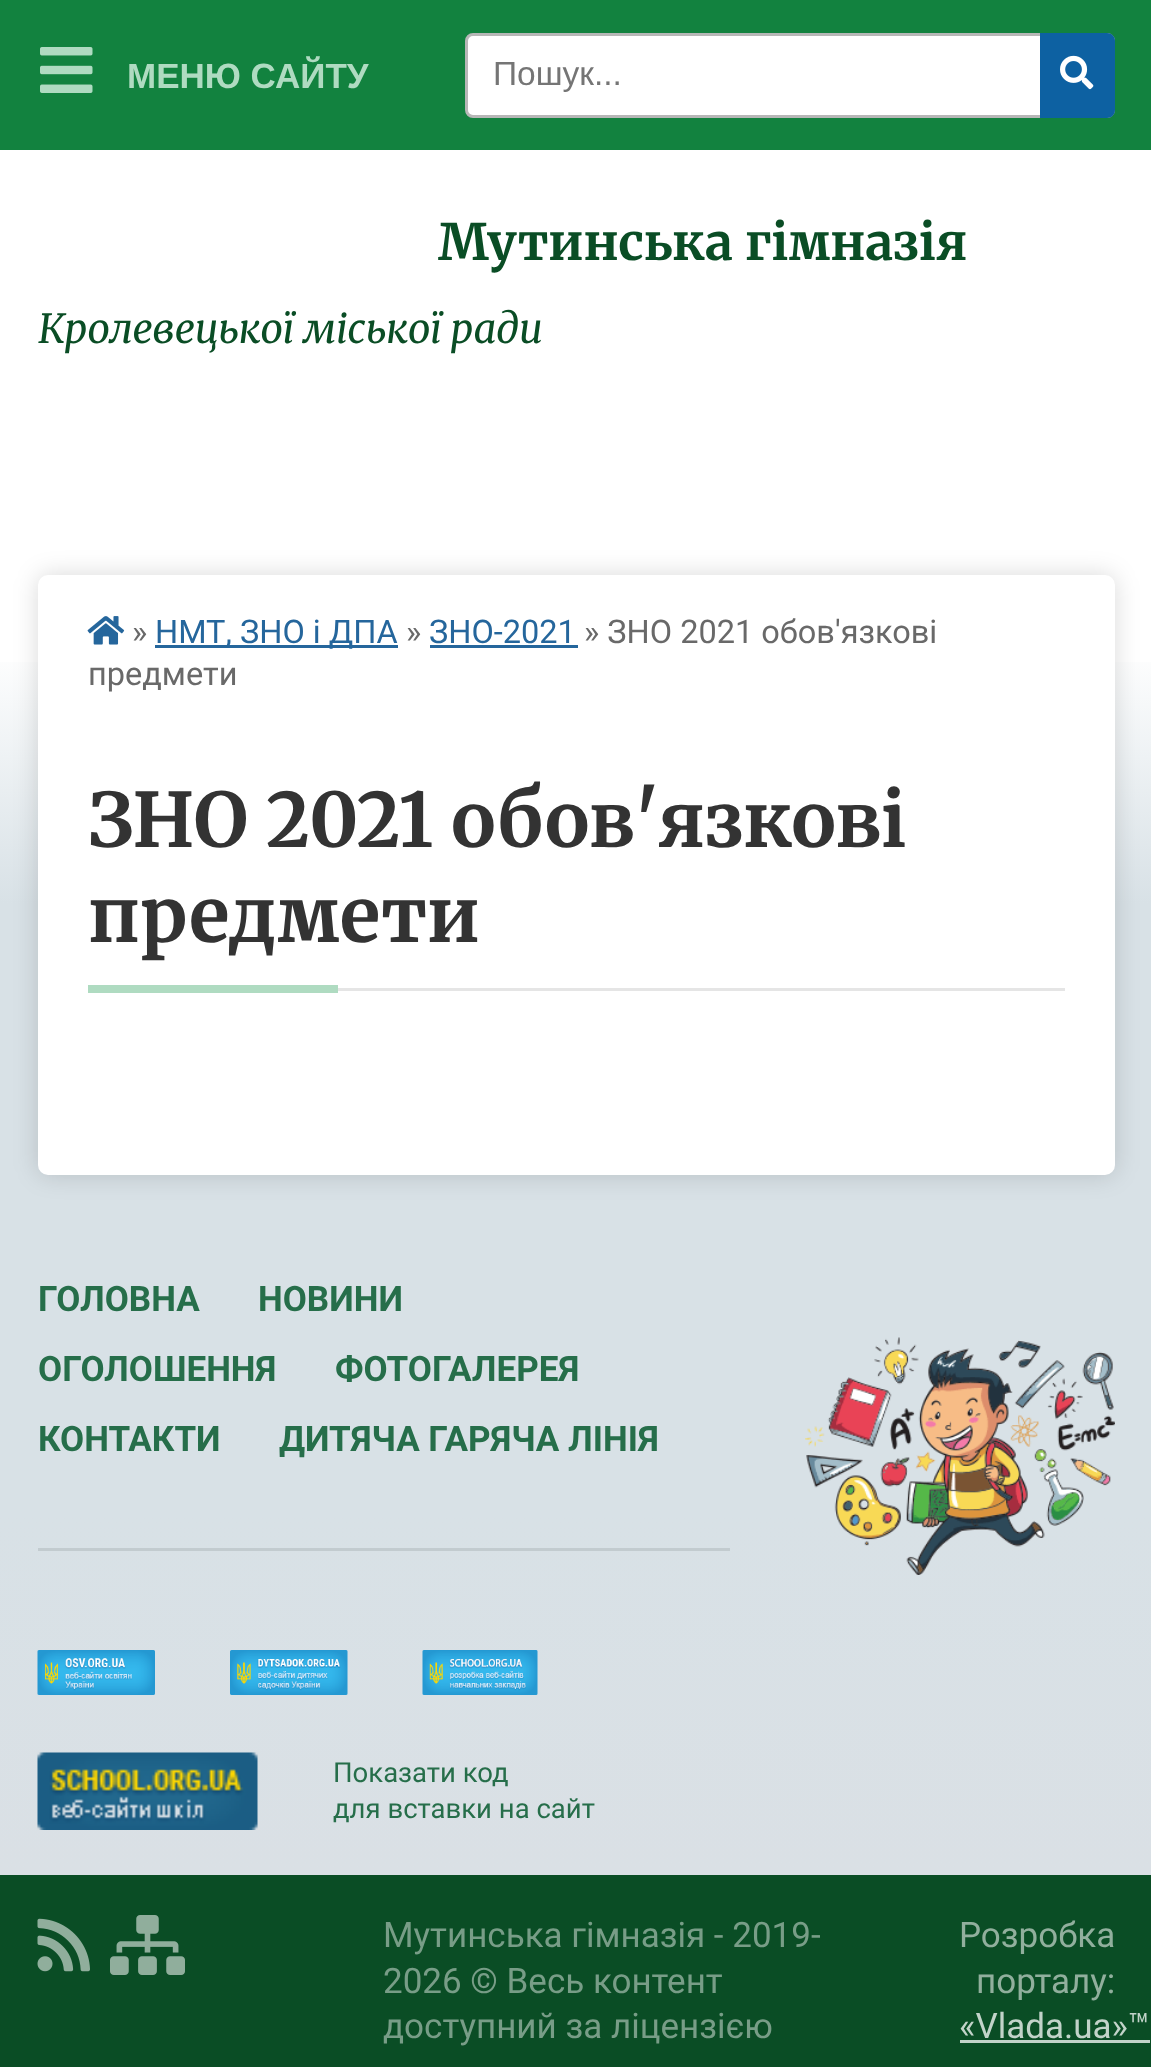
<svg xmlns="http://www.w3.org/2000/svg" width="1151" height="2067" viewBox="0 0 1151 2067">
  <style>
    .t1 { font: bold 35px Liberation Sans; fill: #afdbc1; }
    .t2 { font: 32.5px Roboto; fill: #696969; }
    .t3 { font: 32.5px Roboto; fill: #25669c; }
    .t4 { font: 300 75px Merriweather; fill: #333; }
    .t5 { font: 33.5px Liberation Sans; fill: #757575; }
    .t6 { font: 300 50px Merriweather; fill: #0a4d25; }
    .t7 { font: italic 300 40px Merriweather; fill: #0a4d25; }
    .t8 { font: bold 35px Roboto; fill: #266e4a; }
    .t9 { font: 27.5px Roboto; fill: #266e4a; }
    .t10 { font: 35px Roboto; fill: #789d87; }
    .t11 { font: 35px Roboto; fill: #91af9d; }
    .t12 { font: 35px Roboto; fill: #c2d3c9; }
  </style>
  <defs>
    <linearGradient id="g1" gradientUnits="userSpaceOnUse" x1="576" y1="150" x2="576" y2="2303"><stop offset="0.23" stop-color="#fff"/><stop offset="0.35" stop-color="#d8e1e6"/></linearGradient>
    <linearGradient id="g2" gradientUnits="userSpaceOnUse" x1="576" y1="1138" x2="576" y2="1875"><stop offset="0.51" stop-color="#d8e1e6"/><stop offset="1" stop-color="#dae0e5"/></linearGradient>
  </defs>
  <rect width="100%" height="100%" fill="#fff"/>
  <rect x="0" y="662" width="1151" height="476" fill="url(#g1)"/>
  <rect x="0" y="1138" width="1151" height="737" fill="url(#g2)"/>
  <rect x="38" y="575" width="1077" height="600" rx="10" fill="#00000026" filter="blur(12.5px)"/>
  <rect x="38" y="575" width="1077" height="600" rx="10" fill="#fff"/>
  <rect x="0" y="0" width="1151" height="150" fill="#12823f"/>
  <image x="40" y="47" width="53" height="46" href="images/1.png"/>
  <text x="127" y="88" class="t1">МЕНЮ САЙТУ</text>
  <image x="87" y="616" width="38" height="29" href="images/2.png"/>
  <text x="132" y="643" class="t2">»</text>
  <rect x="155" y="645" width="243" height="3" fill="#25669c"/>
  <text x="155" y="643" class="t3">НМТ, ЗНО і ДПА</text>
  <text x="406" y="643" class="t2">»</text>
  <text x="429" y="643" class="t3">ЗНО-2021</text>
  <rect x="430" y="645" width="148" height="3" fill="#25669c"/>
  <text x="584" y="643" class="t2">» ЗНО 2021 обов'язкові</text>
  <text x="88" y="685" class="t2">предмети</text>
  <rect x="338" y="988" width="727" height="3" fill="#e5e5e5"/>
  <text x="88" y="847" class="t4">ЗНО 2021 обов'язкові</text>
  <text x="88" y="942" class="t4">предмети</text>
  <rect x="88" y="985" width="250" height="8" fill="#afdbc1"/>
  <rect x="466.5" y="34.5" width="647" height="82" rx="6.5" fill="#fff" stroke="#b7b7b7" stroke-width="3"/>
  <text x="493" y="85" class="t5">Пошук...</text>
  <path d="M1040 33H1107C1111.5 33 1115 36.5 1115 41V110C1115 114.5 1111.5 118 1107 118H1040Z" fill="#0d61a2"/>
  <image x="1060" y="55" width="34" height="35" href="images/3.png"/>
  <text x="438" y="260" class="t6">Мутинська гімназія</text>
  <text x="38" y="343" class="t7">Кролевецької міської ради</text>
  <rect x="38" y="1548" width="692" height="3" fill="#c2cbcf"/>
  <text x="38" y="1311" class="t8">ГОЛОВНА</text>
  <text x="258" y="1311" class="t8">НОВИНИ</text>
  <text x="38" y="1381" class="t8">ОГОЛОШЕННЯ</text>
  <text x="335" y="1381" class="t8">ФОТОГАЛЕРЕЯ</text>
  <text x="38" y="1451" class="t8">КОНТАКТИ</text>
  <text x="279" y="1451" class="t8">ДИТЯЧА ГАРЯЧА ЛІНІЯ</text>
  <image x="37" y="1650" width="118" height="45" href="images/4.png"/>
  <image x="230" y="1650" width="118" height="45" href="images/5.png"/>
  <image x="422" y="1650" width="116" height="45" href="images/6.png"/>
  <image x="37" y="1752" width="221" height="78" href="images/7.png"/>
  <text x="333" y="1782" class="t9">Показати код</text>
  <text x="333" y="1818" class="t9">для вставки на сайт</text>
  <image x="805" y="1337" width="310" height="238" href="images/8.png"/>
  <rect x="0" y="1875" width="1151" height="192" fill="#0a4d25"/>
  <image x="37" y="1918" width="53" height="54" href="images/9.png"/>
  <image x="110" y="1915" width="75" height="60" href="images/10.png"/>
  <text x="383" y="1947" class="t10">Мутинська гімназія - 2019-</text>
  <text x="383" y="1993" class="t10">2026 © Весь контент</text>
  <text x="383" y="2038" class="t10">доступний за ліцензією</text>
  <text x="959" y="1947" class="t11">Розробка</text>
  <text x="976" y="1993" class="t11">порталу:</text>
  <text x="959" y="2038" class="t12">«Vlada.ua»™</text>
  <rect x="960" y="2040" width="190" height="3" fill="#c2d3c9"/>
</svg>
